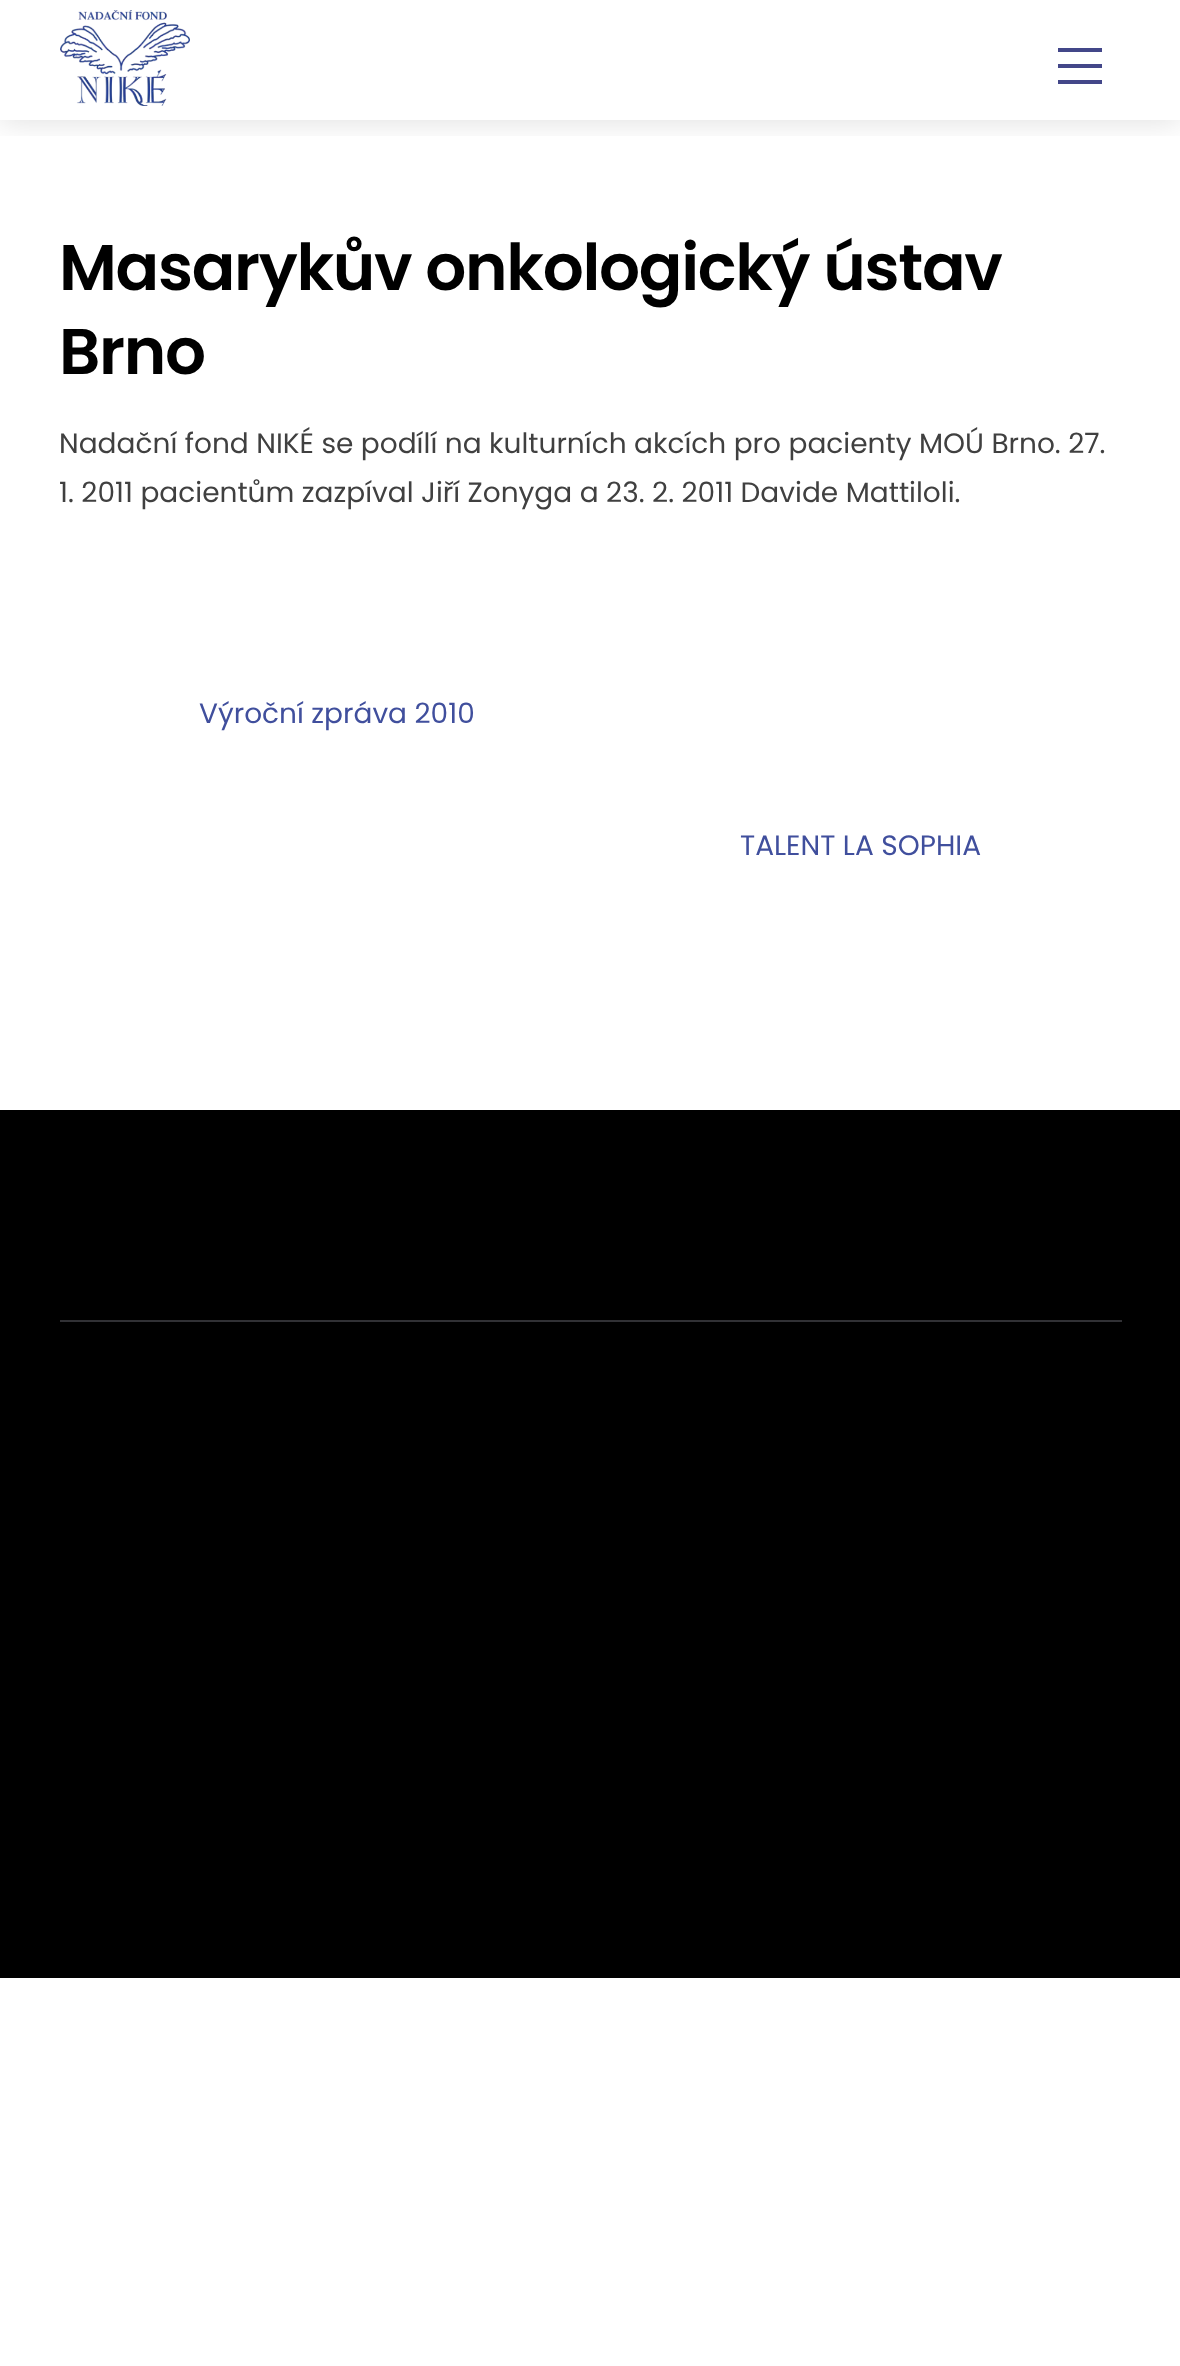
<svg xmlns="http://www.w3.org/2000/svg" width="1180" height="2366" viewBox="0 0 1180 2366">
  <style>
    .t1 { font: 600 64.4px Poppins; letter-spacing: -1.3px; fill: #000; }
    .t2 { font: 28px Poppins; fill: #404040; }
    .t3 { font: 28px Poppins; fill: #404f9d; }
  </style>
  <defs>
    <clipPath id="clip1"><rect x="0" y="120" width="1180" height="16"/></clipPath>
  </defs>
  <rect width="100%" height="100%" fill="#fff"/>
  <g clip-path="url(#clip1)">
    <rect x="0" y="2" width="1180" height="120" fill="#0000001f" filter="blur(15px)"/>
  </g>
  <image x="60" y="10" width="130" height="96" href="images/1.png"/>
  <rect x="1058" y="48" width="44" height="4" fill="#434789"/>
  <rect x="1058" y="80" width="44" height="4" fill="#434789"/>
  <rect x="1058" y="64" width="44" height="4" fill="#434789"/>
  <text x="59" y="290" class="t1">Masarykův onkologický ústav</text>
  <text x="59" y="374" class="t1">Brno</text>
  <text x="59" y="453" class="t2">Nadační fond NIKÉ se podílí na kulturních akcích pro pacienty MOÚ Brno. 27.</text>
  <text x="59" y="502" class="t2">1. 2011 pacientům zazpíval Jiří Zonyga a 23. 2. 2011 Davide Mattiloli.</text>
  <text x="199" y="723" class="t3">Výroční zpráva 2010</text>
  <text x="740" y="855" class="t3">TALENT LA SOPHIA</text>
  <rect x="0" y="1110" width="1180" height="868" fill="#000"/>
  <rect x="60" y="1320" width="1062" height="2" fill="#313135"/>
</svg>
